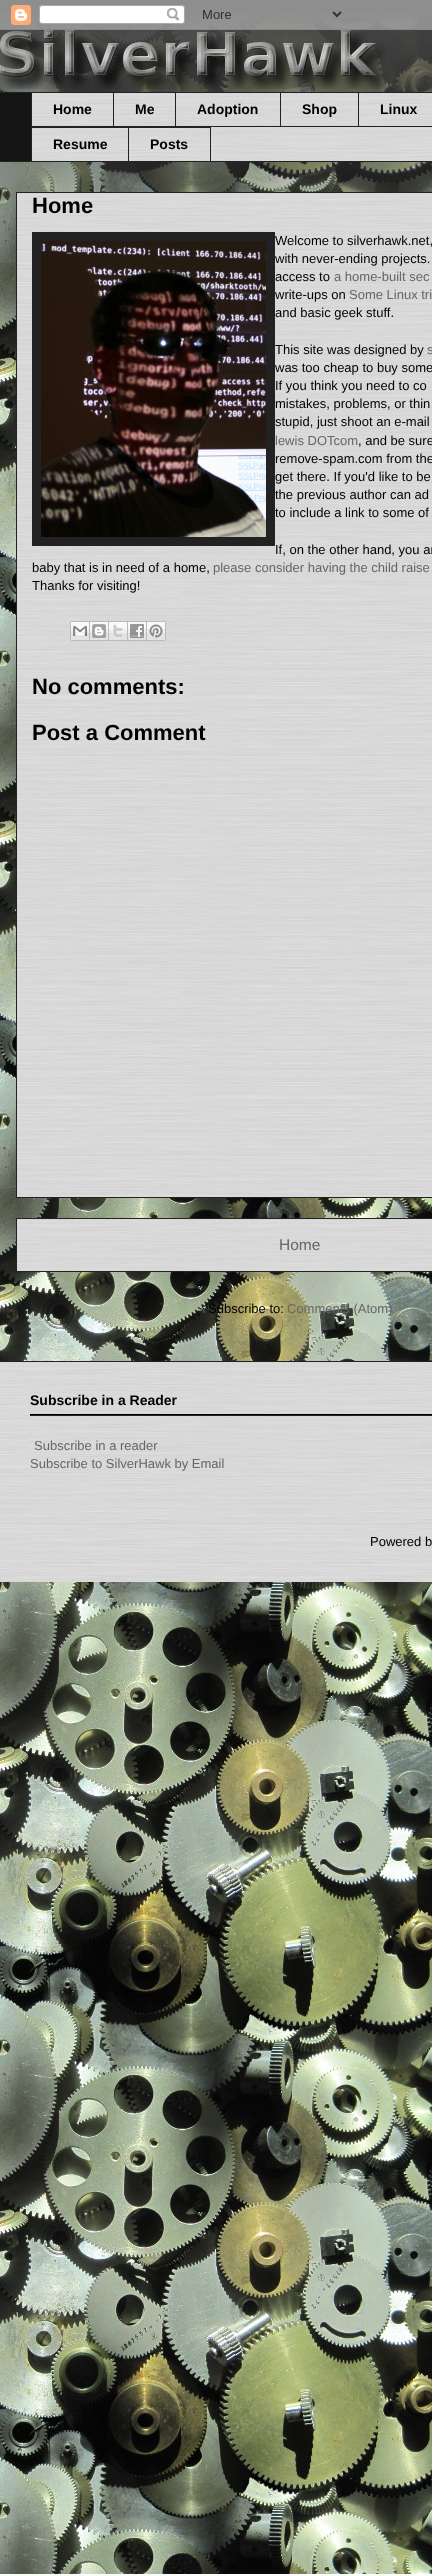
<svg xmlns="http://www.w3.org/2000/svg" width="432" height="2574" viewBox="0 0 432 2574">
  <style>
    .t1 { font: bold 14px Liberation Sans; fill: #000; }
    .t2 { font: bold 22px Liberation Sans; fill: #000; }
    .t3 { font: 13px Liberation Sans; fill: #000; }
    .t4 { font: 13px Liberation Sans; fill: #666; }
    .t5 { font: 15.5px Liberation Sans; fill: #666; }
  </style>
  <rect width="100%" height="100%" fill="#fff"/>
  <image x="0" y="13" width="432" height="2561" href="images/1.png"/>
  <image x="0" y="0" width="432" height="275" href="images/2.png"/>
  <image x="0" y="0" width="432" height="30" href="images/3.png"/>
  <image x="0" y="30" width="386" height="59" href="images/4.png"/>
  <rect x="0" y="93" width="31" height="68" fill="#141414"/>
  <rect x="0" y="92" width="432" height="1" fill="#222"/>
  <image x="32" y="93" width="400" height="68" href="images/5.png"/>
  <rect x="31" y="126" width="401" height="1" fill="#222"/>
  <rect x="31" y="92" width="1" height="35" fill="#222"/>
  <text x="53" y="114" class="t1">Home</text>
  <rect x="113" y="92" width="1" height="35" fill="#222"/>
  <text x="135" y="114" class="t1">Me</text>
  <rect x="175" y="92" width="1" height="35" fill="#222"/>
  <text x="197" y="114" class="t1">Adoption</text>
  <rect x="280" y="92" width="1" height="35" fill="#222"/>
  <text x="302" y="114" class="t1">Shop</text>
  <rect x="358" y="92" width="1" height="35" fill="#222"/>
  <text x="380" y="114" class="t1">Linux</text>
  <rect x="31" y="127" width="97" height="1" fill="#222"/>
  <rect x="31" y="127" width="1" height="35" fill="#222"/>
  <text x="53" y="149" class="t1">Resume</text>
  <rect x="128.5" y="127.5" width="82" height="34" fill="none" stroke="#222"/>
  <text x="150" y="149" class="t1">Posts</text>
  <rect x="0" y="161" width="432" height="1" fill="#222"/>
  <image x="17" y="193" width="415" height="1004" href="images/6.png"/>
  <rect x="16.5" y="192.5" width="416" height="1005" fill="none" stroke="#222"/>
  <text x="32" y="213" class="t2">Home</text>
  <rect x="32" y="232" width="243" height="314" fill="#222"/>
  <image x="41" y="241" width="225" height="296" href="images/7.png"/>
  <text x="275" y="245" class="t3">Welcome to silverhawk.net,</text>
  <text x="275" y="263" class="t3">with never-ending projects.</text>
  <text x="275" y="281" class="t3">access to</text>
  <text x="334" y="281" class="t4">a home-built sec</text>
  <text x="275" y="299" class="t3">write-ups on</text>
  <text x="349" y="299" class="t4">Some Linux tri</text>
  <text x="275" y="317" class="t3">and basic geek stuff.</text>
  <text x="275" y="354" class="t3">This site was designed by</text>
  <text x="427" y="354" class="t4">s</text>
  <text x="275" y="372" class="t3">was too cheap to buy some</text>
  <text x="275" y="390" class="t3">If you think you need to co</text>
  <text x="275" y="408" class="t3">mistakes, problems, or thin</text>
  <text x="275" y="426" class="t3">stupid, just shoot an e-mail</text>
  <text x="275" y="445" class="t4">lewis DOTcom</text>
  <text x="358" y="445" class="t3">, and be sure</text>
  <text x="275" y="463" class="t3">remove-spam.com from the</text>
  <text x="275" y="481" class="t3">get there. If you'd like to be</text>
  <text x="275" y="499" class="t3">the previous author can ad</text>
  <text x="275" y="517" class="t3">to include a link to some of</text>
  <text x="275" y="554" class="t3">If, on the other hand, you ar</text>
  <text x="32" y="572" class="t3">baby that is in need of a home,</text>
  <text x="213" y="572" class="t4">please consider having the child raise</text>
  <text x="32" y="590" class="t3">Thanks for visiting!</text>
  <image x="70" y="621" width="20" height="20" href="images/8.png"/>
  <image x="90" y="621" width="19" height="20" href="images/9.png"/>
  <image x="109" y="621" width="19" height="20" href="images/10.png"/>
  <image x="128" y="621" width="19" height="20" href="images/11.png"/>
  <image x="147" y="621" width="19" height="20" href="images/12.png"/>
  <text x="32" y="694" class="t2">No comments:</text>
  <text x="32" y="740" class="t2">Post a Comment</text>
  <image x="17" y="1219" width="415" height="52" href="images/13.png"/>
  <rect x="16.5" y="1218.5" width="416" height="53" fill="none" stroke="#222"/>
  <text x="279" y="1250" class="t5">Home</text>
  <text x="208" y="1313" class="t3">Subscribe to:</text>
  <text x="287" y="1313" class="t4">Comments (Atom)</text>
  <image x="0" y="1362" width="432" height="220" href="images/14.png"/>
  <rect x="0" y="1361" width="432" height="1" fill="#222"/>
  <image x="30" y="1392" width="402" height="22" href="images/15.png"/>
  <rect x="30" y="1414" width="402" height="1" fill="#000"/>
  <text x="30" y="1405" class="t1">Subscribe in a Reader</text>
  <image x="30" y="1416" width="402" height="57" href="images/16.png"/>
  <rect x="30" y="1415" width="402" height="1" fill="#222"/>
  <text x="34" y="1450" class="t4">Subscribe in a reader</text>
  <text x="30" y="1468" class="t4">Subscribe to SilverHawk by Email</text>
  <image x="30" y="1533" width="402" height="19" href="images/17.png"/>
  <text x="370" y="1546" class="t3">Powered b</text>
</svg>
